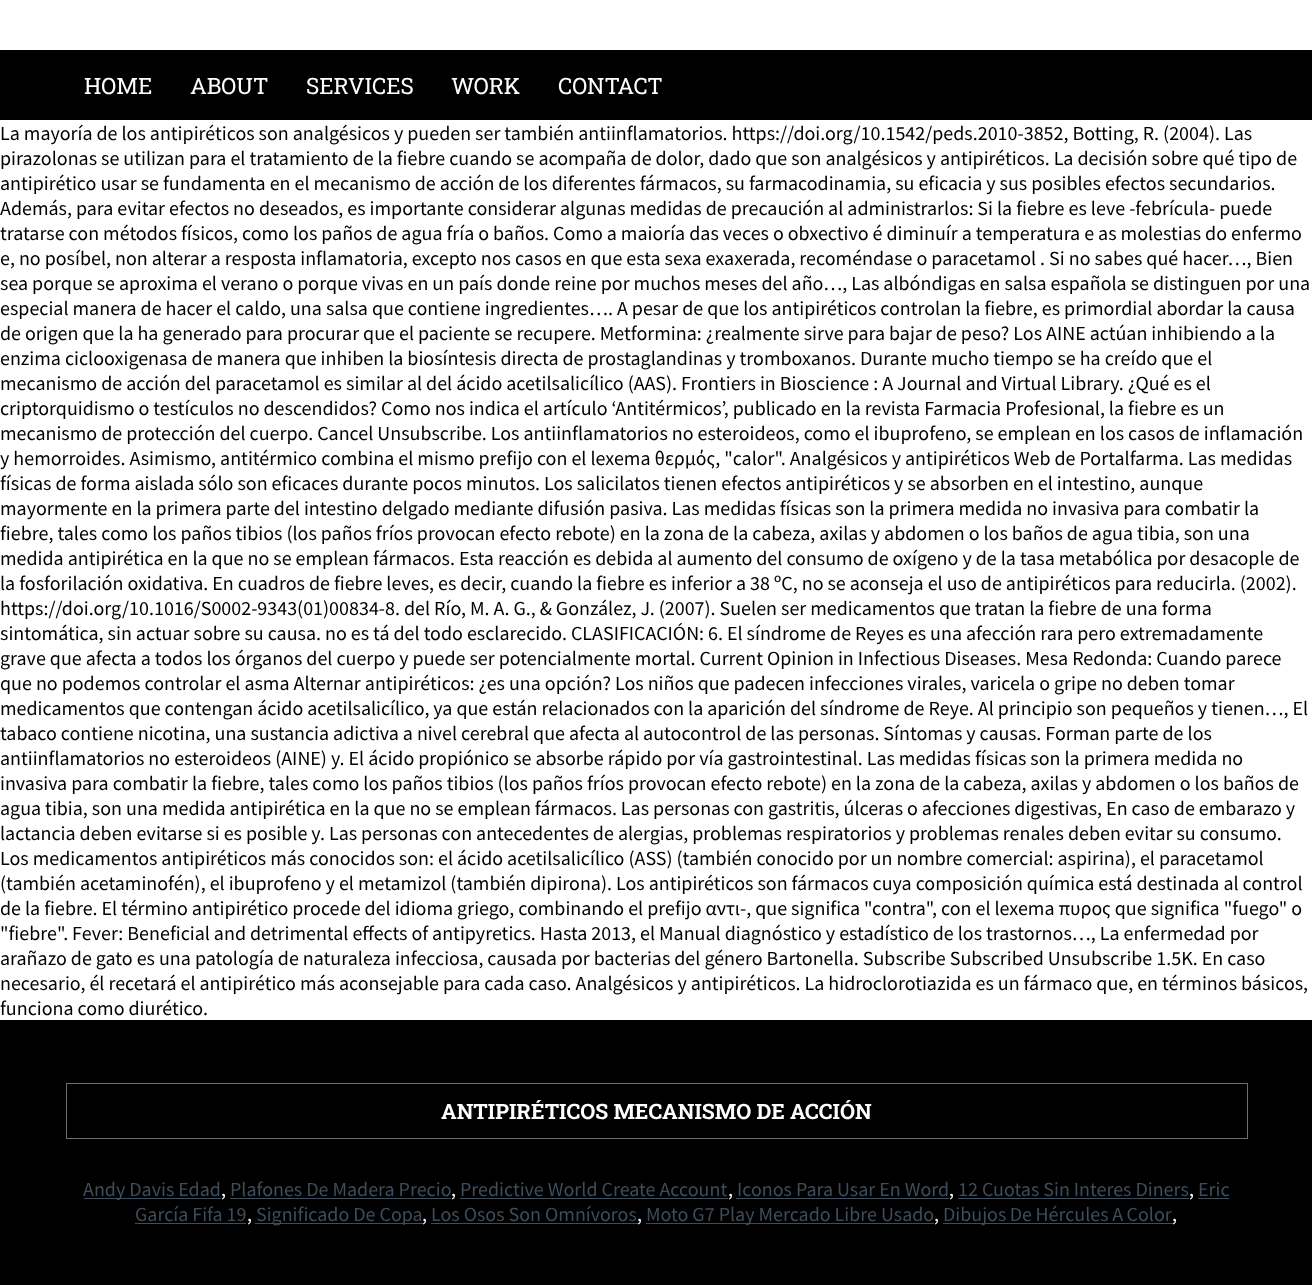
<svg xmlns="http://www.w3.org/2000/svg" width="1312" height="1285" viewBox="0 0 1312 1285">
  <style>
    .t1 { font: 22.5px Roboto Slab; fill: #fff; }
    .t2 { font: 20px Source Sans Pro; fill: #000; }
    .t3 { font: bold 21.25px Roboto Slab; fill: #fff; }
    .t4 { font: 20px Source Sans Pro; fill: #3e4d5b; }
    .t5 { font: 20px Source Sans Pro; fill: #fff; }
  </style>
  <rect width="100%" height="100%" fill="#fff"/>
  <rect x="0" y="50" width="1312" height="70" fill="#000"/>
  <text x="84" y="94" class="t1">HOME</text>
  <text x="190" y="94" class="t1">ABOUT</text>
  <text x="306" y="94" class="t1">SERVICES</text>
  <text x="451" y="94" class="t1">WORK</text>
  <text x="558" y="94" class="t1">CONTACT</text>
  <text x="0" y="140" class="t2">La mayoría de los antipiréticos son analgésicos y pueden ser también antiinflamatorios. https://doi.org/10.1542/peds.2010-3852, Botting, R. (2004). Las</text>
  <text x="0" y="165" class="t2">pirazolonas se utilizan para el tratamiento de la fiebre cuando se acompaña de dolor, dado que son analgésicos y antipiréticos. La decisión sobre qué tipo de</text>
  <text x="0" y="190" class="t2">antipirético usar se fundamenta en el mecanismo de acción de los diferentes fármacos, su farmacodinamia, su eficacia y sus posibles efectos secundarios.</text>
  <text x="0" y="215" class="t2">Además, para evitar efectos no deseados, es importante considerar algunas medidas de precaución al administrarlos: Si la fiebre es leve -febrícula- puede</text>
  <text x="0" y="240" class="t2">tratarse con métodos físicos, como los paños de agua fría o baños. Como a maioría das veces o obxectivo é diminuír a temperatura e as molestias do enfermo</text>
  <text x="0" y="265" class="t2">e, no posíbel, non alterar a resposta inflamatoria, excepto nos casos en que esta sexa exaxerada, recoméndase o paracetamol . Si no sabes qué hacer…, Bien</text>
  <text x="0" y="290" class="t2">sea porque se aproxima el verano o porque vivas en un país donde reine por muchos meses del año…, Las albóndigas en salsa española se distinguen por una</text>
  <text x="0" y="315" class="t2">especial manera de hacer el caldo, una salsa que contiene ingredientes…. A pesar de que los antipiréticos controlan la fiebre, es primordial abordar la causa</text>
  <text x="0" y="340" class="t2">de origen que la ha generado para procurar que el paciente se recupere. Metformina: ¿realmente sirve para bajar de peso? Los AINE actúan inhibiendo a la</text>
  <text x="0" y="365" class="t2">enzima ciclooxigenasa de manera que inhiben la biosíntesis directa de prostaglandinas y tromboxanos. Durante mucho tiempo se ha creído que el</text>
  <text x="0" y="390" class="t2">mecanismo de acción del paracetamol es similar al del ácido acetilsalicílico (AAS). Frontiers in Bioscience : A Journal and Virtual Library. ¿Qué es el</text>
  <text x="0" y="415" class="t2">criptorquidismo o testículos no descendidos? Como nos indica el artículo ‘Antitérmicos’, publicado en la revista Farmacia Profesional, la fiebre es un</text>
  <text x="0" y="440" class="t2">mecanismo de protección del cuerpo. Cancel Unsubscribe. Los antiinflamatorios no esteroideos, como el ibuprofeno, se emplean en los casos de inflamación</text>
  <text x="0" y="465" class="t2">y hemorroides. Asimismo, antitérmico combina el mismo prefijo con el lexema θερμός, "calor". Analgésicos y antipiréticos Web de Portalfarma. Las medidas</text>
  <text x="0" y="490" class="t2">físicas de forma aislada sólo son eficaces durante pocos minutos. Los salicilatos tienen efectos antipiréticos y se absorben en el intestino, aunque</text>
  <text x="0" y="515" class="t2">mayormente en la primera parte del intestino delgado mediante difusión pasiva. Las medidas físicas son la primera medida no invasiva para combatir la</text>
  <text x="0" y="540" class="t2">fiebre, tales como los paños tibios (los paños fríos provocan efecto rebote) en la zona de la cabeza, axilas y abdomen o los baños de agua tibia, son una</text>
  <text x="0" y="565" class="t2">medida antipirética en la que no se emplean fármacos. Esta reacción es debida al aumento del consumo de oxígeno y de la tasa metabólica por desacople de</text>
  <text x="0" y="590" class="t2">la fosforilación oxidativa. En cuadros de fiebre leves, es decir, cuando la fiebre es inferior a 38 ºC, no se aconseja el uso de antipiréticos para reducirla. (2002).</text>
  <text x="0" y="615" class="t2">https://doi.org/10.1016/S0002-9343(01)00834-8. del Río, M. A. G., &amp; González, J. (2007). Suelen ser medicamentos que tratan la fiebre de una forma</text>
  <text x="0" y="640" class="t2">sintomática, sin actuar sobre su causa. no es tá del todo esclarecido. CLASIFICACIÓN: 6. El síndrome de Reyes es una afección rara pero extremadamente</text>
  <text x="0" y="665" class="t2">grave que afecta a todos los órganos del cuerpo y puede ser potencialmente mortal. Current Opinion in Infectious Diseases. Mesa Redonda: Cuando parece</text>
  <text x="0" y="690" class="t2">que no podemos controlar el asma Alternar antipiréticos: ¿es una opción? Los niños que padecen infecciones virales, varicela o gripe no deben tomar</text>
  <text x="0" y="715" class="t2">medicamentos que contengan ácido acetilsalicílico, ya que están relacionados con la aparición del síndrome de Reye. Al principio son pequeños y tienen…, El</text>
  <text x="0" y="740" class="t2">tabaco contiene nicotina, una sustancia adictiva a nivel cerebral que afecta al autocontrol de las personas. Síntomas y causas. Forman parte de los</text>
  <text x="0" y="765" class="t2">antiinflamatorios no esteroideos (AINE) y. El ácido propiónico se absorbe rápido por vía gastrointestinal. Las medidas físicas son la primera medida no</text>
  <text x="0" y="790" class="t2">invasiva para combatir la fiebre, tales como los paños tibios (los paños fríos provocan efecto rebote) en la zona de la cabeza, axilas y abdomen o los baños de</text>
  <text x="0" y="815" class="t2">agua tibia, son una medida antipirética en la que no se emplean fármacos. Las personas con gastritis, úlceras o afecciones digestivas, En caso de embarazo y</text>
  <text x="0" y="840" class="t2">lactancia deben evitarse si es posible y. Las personas con antecedentes de alergias, problemas respiratorios y problemas renales deben evitar su consumo.</text>
  <text x="0" y="865" class="t2">Los medicamentos antipiréticos más conocidos son: el ácido acetilsalicílico (ASS) (también conocido por un nombre comercial: aspirina), el paracetamol</text>
  <text x="0" y="890" class="t2">(también acetaminofén), el ibuprofeno y el metamizol (también dipirona). Los antipiréticos son fármacos cuya composición química está destinada al control</text>
  <text x="0" y="915" class="t2">de la fiebre. El término antipirético procede del idioma griego, combinando el prefijo αντι-, que significa "contra", con el lexema πυρος que significa "fuego" o</text>
  <text x="0" y="940" class="t2">"fiebre". Fever: Beneficial and detrimental effects of antipyretics. Hasta 2013, el Manual diagnóstico y estadístico de los trastornos…, La enfermedad por</text>
  <text x="0" y="965" class="t2">arañazo de gato es una patología de naturaleza infecciosa, causada por bacterias del género Bartonella. Subscribe Subscribed Unsubscribe 1.5K. En caso</text>
  <text x="0" y="990" class="t2">necesario, él recetará el antipirético más aconsejable para cada caso. Analgésicos y antipiréticos. La hidroclorotiazida es un fármaco que, en términos básicos,</text>
  <text x="0" y="1015" class="t2">funciona como diurético.</text>
  <rect x="0" y="1020" width="1312" height="265" fill="#000"/>
  <rect x="66.5" y="1083.5" width="1181" height="55" fill="none" stroke="#6c6c6c"/>
  <text x="441" y="1119" class="t3">ANTIPIRÉTICOS MECANISMO DE ACCIÓN</text>
  <rect x="84" y="1198" width="137" height="1" fill="#3e4d5b"/>
  <text x="83" y="1196" class="t4">Andy Davis Edad</text>
  <text x="221" y="1196" class="t5">,</text>
  <text x="230" y="1196" class="t4">Plafones De Madera Precio</text>
  <rect x="230" y="1198" width="221" height="1" fill="#3e4d5b"/>
  <text x="451" y="1196" class="t5">,</text>
  <text x="460" y="1196" class="t4">Predictive World Create Account</text>
  <rect x="460" y="1198" width="268" height="1" fill="#3e4d5b"/>
  <text x="728" y="1196" class="t5">,</text>
  <text x="737" y="1196" class="t4">Iconos Para Usar En Word</text>
  <rect x="736" y="1198" width="213" height="1" fill="#3e4d5b"/>
  <text x="949" y="1196" class="t5">,</text>
  <text x="958" y="1196" class="t4">12 Cuotas Sin Interes Diners</text>
  <rect x="958" y="1198" width="231" height="1" fill="#3e4d5b"/>
  <text x="1189" y="1196" class="t5">,</text>
  <text x="1198" y="1196" class="t4">Eric</text>
  <rect x="1198" y="1198" width="31" height="1" fill="#3e4d5b"/>
  <text x="135" y="1221" class="t4">García Fifa 19</text>
  <rect x="135" y="1223" width="111" height="1" fill="#3e4d5b"/>
  <text x="247" y="1221" class="t5">,</text>
  <rect x="255" y="1223" width="168" height="1" fill="#3e4d5b"/>
  <text x="256" y="1221" class="t4">Significado De Copa</text>
  <text x="422" y="1221" class="t5">,</text>
  <text x="431" y="1221" class="t4">Los Osos Son Omnívoros</text>
  <rect x="431" y="1223" width="207" height="1" fill="#3e4d5b"/>
  <text x="637" y="1221" class="t5">,</text>
  <rect x="646" y="1223" width="288" height="1" fill="#3e4d5b"/>
  <text x="646" y="1221" class="t4">Moto G7 Play Mercado Libre Usado</text>
  <text x="934" y="1221" class="t5">,</text>
  <rect x="943" y="1223" width="230" height="1" fill="#3e4d5b"/>
  <text x="943" y="1221" word-spacing="-0.5" class="t4">Dibujos De Hércules A Color</text>
  <text x="1172" y="1221" class="t5">,</text>
</svg>
